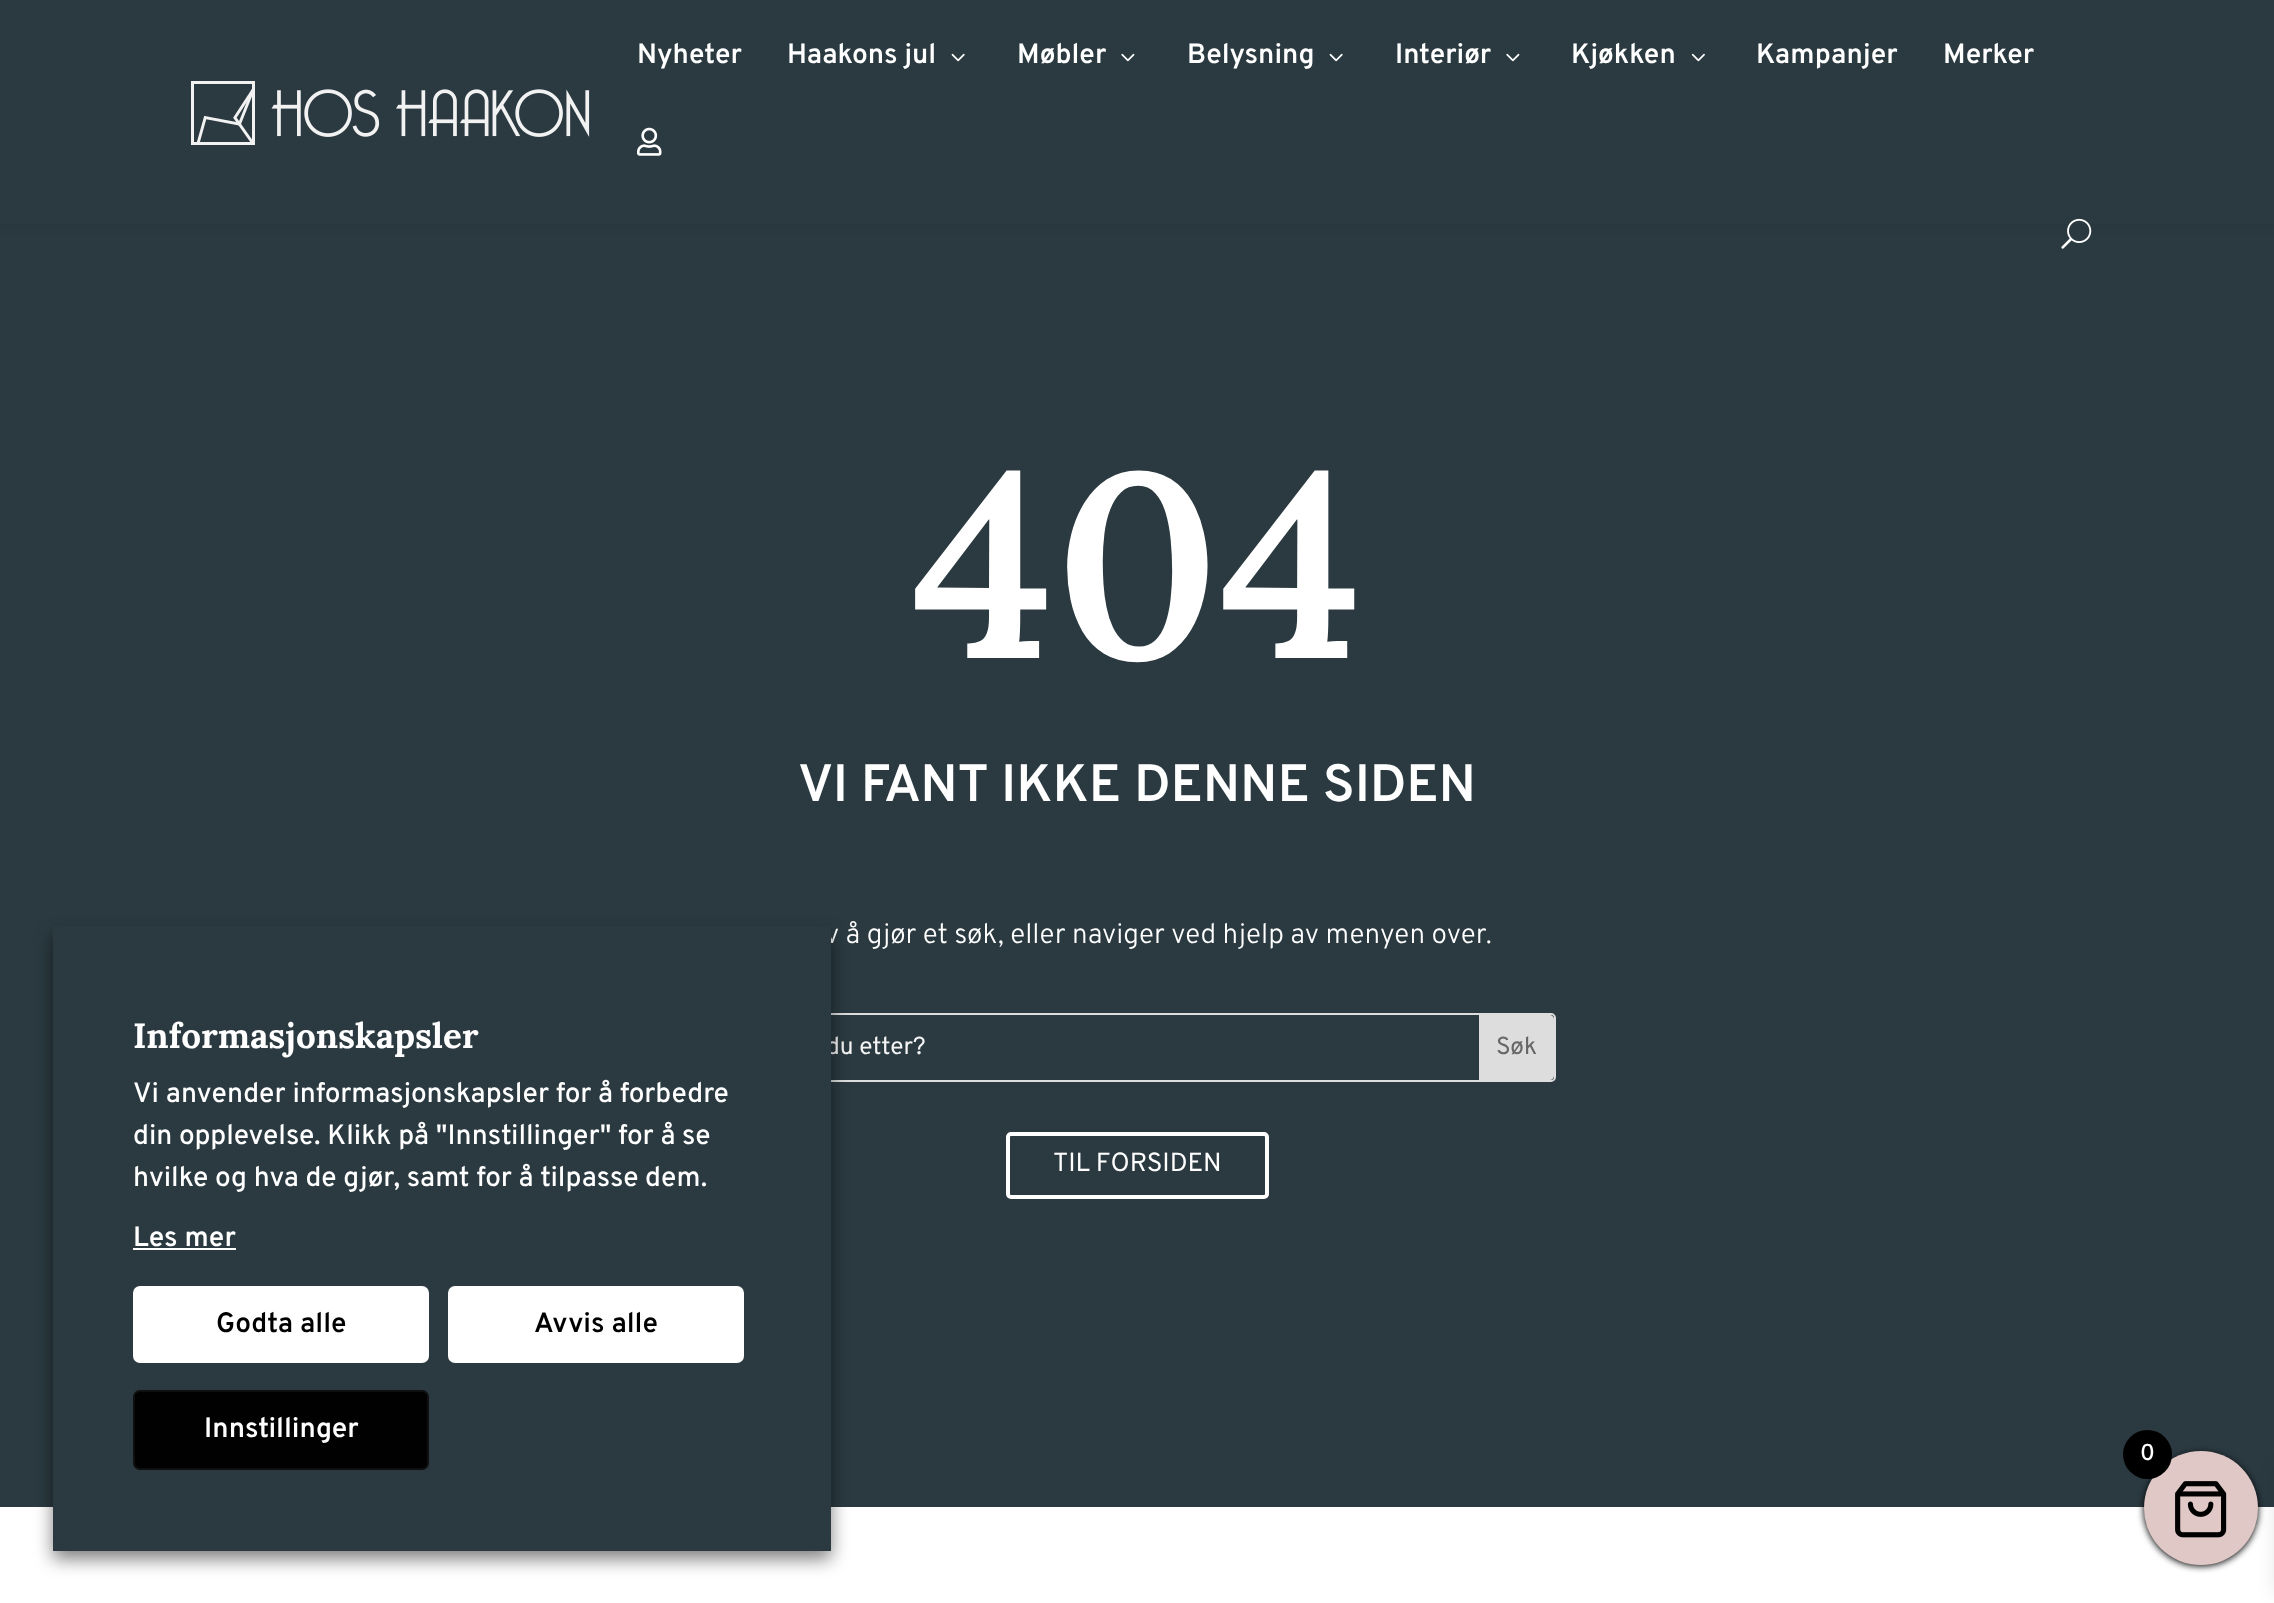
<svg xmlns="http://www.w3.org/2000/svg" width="2274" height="1603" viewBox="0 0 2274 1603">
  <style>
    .t1 { font: 600 28px Overpass; fill: #fff; }
    .t2 { font: 600 262px Lora; fill: #fff; }
    .t3 { font: 600 52.5px Overpass; fill: #fff; }
    .t4 { font: 300 28px Overpass; fill: #fff; }
    .t5 { font: 24.5px Overpass; fill: #f4f4f4; }
    .t6 { font: 24.5px Overpass; fill: #666; }
    .t7 { font: 26.25px Overpass; fill: #fff; }
    .t8 { font: bold 35px Lora; fill: #fff; }
    .t9 { font: 500 28px Overpass; fill: #fff; }
    .t10 { font: 600 28px Overpass; fill: #000; }
    .t11 { font: 500 23px Overpass; fill: #fff; }
  </style>
  <rect width="100%" height="100%" fill="#fff"/>
  <rect x="0" y="224" width="2274" height="1283" fill="#2b3a41"/>
  <rect x="0" y="0" width="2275" height="224" fill="#0000001a" filter="blur(6px)"/>
  <rect x="0" y="0" width="2274" height="224" fill="#2b3a41"/>
  <text x="637" y="63" class="t1">Nyheter</text>
  <text x="787" y="63" class="t1">Haakons jul</text>
  <image x="951" y="53" width="14" height="9" href="images/1.png"/>
  <text x="1017" y="63" class="t1">Møbler</text>
  <image x="1121" y="53" width="14" height="9" href="images/2.png"/>
  <text x="1187" y="63" class="t1">Belysning</text>
  <image x="1329" y="53" width="14" height="9" href="images/1.png"/>
  <text x="1395" y="63" class="t1">Interiør</text>
  <image x="1506" y="53" width="14" height="9" href="images/2.png"/>
  <text x="1571" y="63" class="t1">Kjøkken</text>
  <image x="1691" y="53" width="14" height="9" href="images/3.png"/>
  <text x="1756" y="63" class="t1">Kampanjer</text>
  <text x="1943" y="63" class="t1">Merker</text>
  <image x="637" y="127" width="25" height="29" href="images/4.png"/>
  <image x="2061" y="218" width="31" height="31" href="images/5.png"/>
  <image x="191" y="81" width="399" height="64" href="images/6.png"/>
  <text x="912" y="658" class="t2">404</text>
  <text x="798" y="801" class="t3">VI FANT IKKE DENNE SIDEN</text>
  <text x="825" y="943" class="t4">v å gjør et søk, eller naviger ved hjelp av menyen over.</text>
  <rect x="720" y="1014" width="835" height="67" rx="4" fill="none" stroke="#ddd" stroke-width="2"/>
  <text x="826" y="1054" class="t5">du etter?</text>
  <path d="M1479 1015H1550C1552 1015 1554 1017 1554 1019V1076C1554 1078 1552 1080 1550 1080H1479Z" fill="#ddd"/>
  <text x="1496" y="1054" class="t6">Søk</text>
  <rect x="1008" y="1134" width="259" height="63" rx="3" fill="none" stroke="#fff" stroke-width="4"/>
  <text x="1053" y="1171" class="t7">TIL FORSIDEN</text>
  <rect x="53" y="935" width="778" height="624" fill="#00000080" filter="blur(9px)"/>
  <rect x="53" y="926" width="778" height="625" fill="#2b3a41"/>
  <text x="133" y="1048" class="t8">Informasjonskapsler</text>
  <text x="133" y="1102" class="t9">Vi anvender informasjonskapsler for å forbedre</text>
  <text x="133" y="1144" class="t9">din opplevelse. Klikk på "Innstillinger" for å se</text>
  <text x="133" y="1186" class="t9">hvilke og hva de gjør, samt for å tilpasse dem.</text>
  <text x="133" y="1246" class="t1">Les mer</text>
  <rect x="133" y="1248" width="103" height="2" fill="#fff"/>
  <rect x="133" y="1286" width="296" height="77" rx="7" fill="#fff"/>
  <text x="216" y="1332" class="t10">Godta alle</text>
  <rect x="448" y="1286" width="296" height="77" rx="7" fill="#fff"/>
  <text x="534" y="1332" class="t10">Avvis alle</text>
  <rect x="134" y="1391" width="294" height="78" rx="6" fill="#010101" stroke="#0f0f0f" stroke-width="2"/>
  <text x="204" y="1437" class="t1">Innstillinger</text>
  <rect x="2144" y="1453" width="114" height="113" rx="56.5" fill="#000" filter="blur(3.5px)"/>
  <rect x="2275" y="1468" width="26" height="126" fill="#0000001a" filter="blur(9px)"/>
  <circle cx="2201" cy="1508" r="57" fill="#e0c8c6"/>
  <circle cx="2147.5" cy="1454.5" r="24.5" fill="#000"/>
  <text x="2140" y="1460" class="t11">0</text>
  <image x="2175" y="1481" width="52" height="57" href="images/7.png"/>
</svg>
